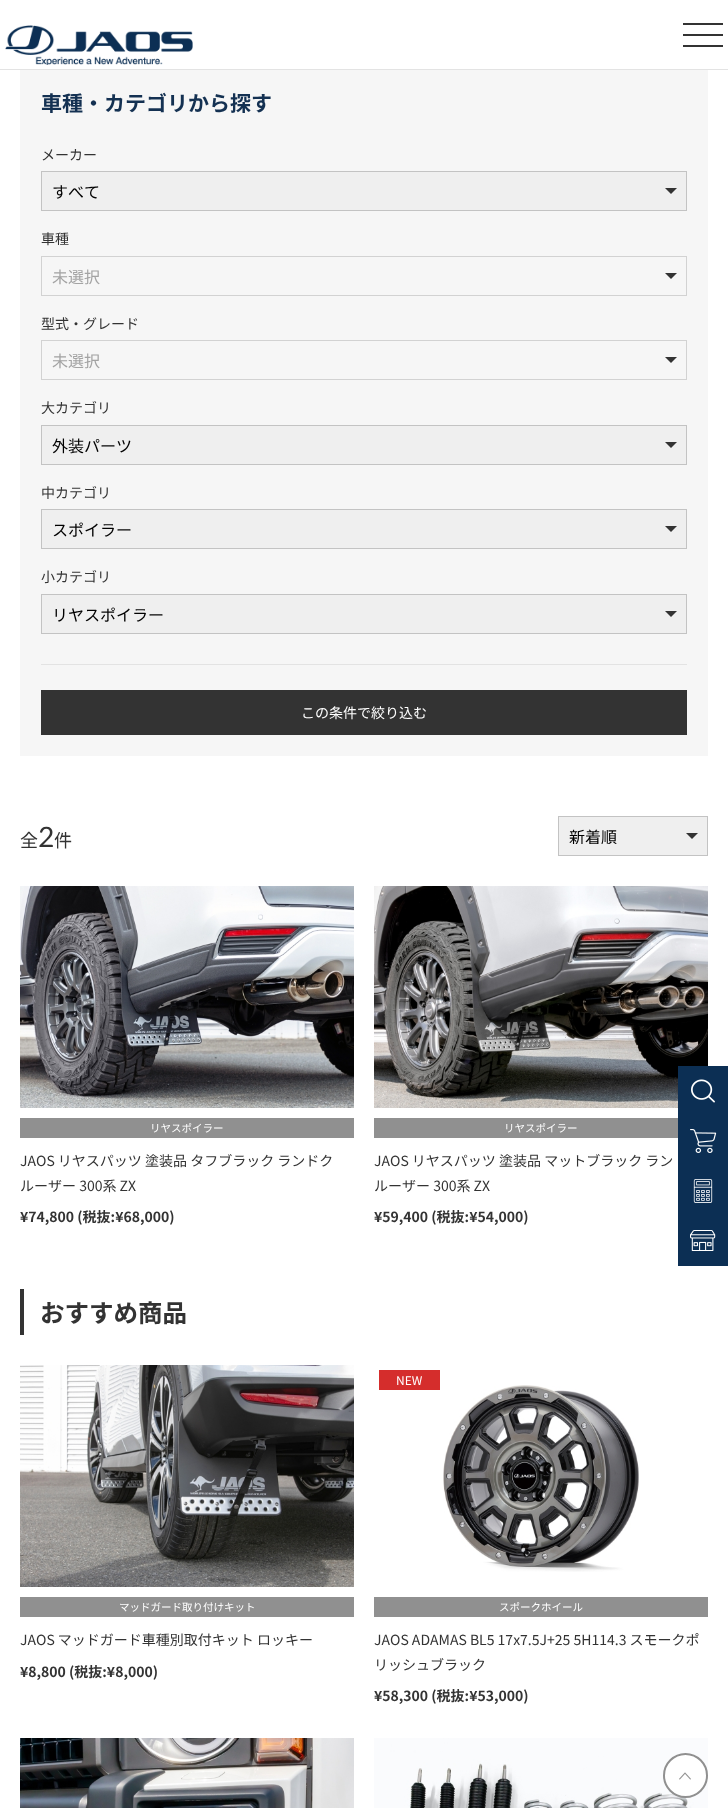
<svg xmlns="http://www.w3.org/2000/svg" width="728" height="1808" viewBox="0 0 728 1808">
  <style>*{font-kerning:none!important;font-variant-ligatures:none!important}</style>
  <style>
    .t1 { font: bold 21px Noto Sans JP; fill: #143152; }
    .t2 { font: 14px Noto Sans JP; fill: #333; }
    .t3 { font: 16px Noto Sans JP; fill: #000; }
    .t4 { font: 16px Noto Sans JP; fill: #a3a3a3; }
    .t5 { font: 14px Noto Sans JP; fill: #fff; }
    .t6 { font: 18px Noto Sans JP; fill: #333; }
    .t7 { font: 28px Lato; fill: #333; }
    .t8 { font: 10.5px Noto Sans JP; fill: #fff; }
    .t9 { font: bold 14px Noto Sans JP; fill: #333; }
    .t10 { font: bold 24.5px Noto Sans JP; fill: #333; }
    .t11 { font: 12px Noto Sans JP; fill: #fff; }
  </style>
  <defs>
    <clipPath id="clip1"><rect x="569" y="828" width="98" height="16"/></clipPath>
  </defs>
  <rect width="100%" height="100%" fill="#fff"/>
  <rect x="0" y="69" width="728" height="1" fill="#e3e3e3"/>
  <image x="5" y="25" width="188" height="40" href="images/1.png"/>
  <rect x="683" y="23" width="40" height="2" fill="#333"/>
  <rect x="683" y="34" width="40" height="2" fill="#333"/>
  <rect x="683" y="45" width="40" height="2" fill="#333"/>
  <rect x="20" y="70" width="688" height="686" fill="#f6f6f6"/>
  <text x="41" y="111" class="t1">車種・カテゴリから探す</text>
  <rect x="41" y="664" width="646" height="1" fill="#e3e3e3"/>
  <text x="41" y="160" class="t2">メーカー</text>
  <rect x="41.5" y="171.5" width="645" height="39" fill="#efefef" stroke="#c3c3c3"/>
  <text x="52" y="198" class="t3">すべて</text>
  <path d="M665 188H677L671 194Z" fill="#333"/>
  <text x="41" y="244" class="t2">車種</text>
  <rect x="41.5" y="256.5" width="645" height="39" fill="none" stroke="#d2d2d2"/>
  <text x="52" y="283" class="t4">未選択</text>
  <path d="M665 273H677L671 279Z" fill="#333"/>
  <text x="41" y="329" class="t2">型式・グレード</text>
  <rect x="41.5" y="340.5" width="645" height="39" fill="none" stroke="#d2d2d2"/>
  <text x="52" y="367" class="t4">未選択</text>
  <path d="M665 357H677L671 363Z" fill="#333"/>
  <text x="41" y="413" class="t2">大カテゴリ</text>
  <rect x="41.5" y="425.5" width="645" height="39" fill="#efefef" stroke="#c3c3c3"/>
  <text x="52" y="452" class="t3">外装パーツ</text>
  <path d="M665 442H677L671 448Z" fill="#333"/>
  <text x="41" y="498" class="t2">中カテゴリ</text>
  <rect x="41.5" y="509.5" width="645" height="39" fill="#efefef" stroke="#c3c3c3"/>
  <text x="52" y="536" class="t3">スポイラー</text>
  <path d="M665 526H677L671 532Z" fill="#333"/>
  <text x="41" y="582" class="t2">小カテゴリ</text>
  <rect x="41.5" y="594.5" width="645" height="39" fill="#efefef" stroke="#c3c3c3"/>
  <text x="52" y="621" class="t3">リヤスポイラー</text>
  <path d="M665 611H677L671 617Z" fill="#333"/>
  <rect x="41" y="690" width="646" height="45" fill="#333"/>
  <text x="301" y="718" class="t5">この条件で絞り込む</text>
  <text x="20" y="847" class="t6">全</text>
  <text x="38" y="847" class="t7">2</text>
  <text x="54" y="847" class="t6">件</text>
  <rect x="558.5" y="816.5" width="149" height="39" fill="#efefef" stroke="#c3c3c3"/>
  <g clip-path="url(#clip1)">
    <text x="569" y="843" class="t3">新着順</text>
  </g>
  <path d="M686 833H698L692 839Z" fill="#333"/>
  <image x="20" y="886" width="334" height="222" href="images/2.png"/>
  <rect x="20" y="1118" width="334" height="20" fill="#909090"/>
  <text x="150" y="1132" class="t8">リヤスポイラー</text>
  <text x="20" y="1166" class="t2">JAOS リヤスパッツ 塗装品 タフブラック ランドク</text>
  <text x="20" y="1191" class="t2">ルーザー 300系 ZX</text>
  <text x="20" y="1222" class="t9">¥74,800 (税抜:¥68,000)</text>
  <image x="374" y="886" width="334" height="222" href="images/3.png"/>
  <rect x="374" y="1118" width="304" height="20" fill="#909090"/>
  <text x="504" y="1132" class="t8">リヤスポイラー</text>
  <text x="374" y="1166" class="t2">JAOS リヤスパッツ 塗装品 マットブラック ラン</text>
  <text x="374" y="1191" class="t2">ルーザー 300系 ZX</text>
  <text x="374" y="1222" class="t9">¥59,400 (税抜:¥54,000)</text>
  <rect x="20" y="1289" width="4" height="46" fill="#333"/>
  <text x="40" y="1322" class="t10">おすすめ商品</text>
  <image x="20" y="1365" width="334" height="222" href="images/4.png"/>
  <rect x="20" y="1597" width="334" height="20" fill="#909090"/>
  <text x="119" y="1611" class="t8">マッドガード取り付けキット</text>
  <text x="20" y="1645" class="t2">JAOS マッドガード車種別取付キット ロッキー</text>
  <text x="20" y="1677" class="t9">¥8,800 (税抜:¥8,000)</text>
  <rect x="379" y="1370" width="61" height="20" fill="#d52d2c"/>
  <text x="396" y="1385" class="t11">NEW</text>
  <image x="443" y="1385" width="196" height="187" href="images/5.png"/>
  <rect x="374" y="1597" width="334" height="20" fill="#909090"/>
  <text x="499" y="1611" class="t8">スポークホイール</text>
  <text x="374" y="1645" class="t2">JAOS ADAMAS BL5 17x7.5J+25 5H114.3 スモークポ</text>
  <text x="374" y="1670" class="t2">リッシュブラック</text>
  <text x="374" y="1701" class="t9">¥58,300 (税抜:¥53,000)</text>
  <image x="20" y="1738" width="334" height="70" href="images/6.png"/>
  <image x="374" y="1738" width="334" height="70" href="images/7.png"/>
  <rect x="678" y="1066" width="50" height="200" fill="#0c2f54"/>
  <image x="691" y="1079" width="24" height="24" href="images/8.png"/>
  <image x="690" y="1129" width="27" height="24" href="images/9.png"/>
  <image x="693" y="1179" width="20" height="24" href="images/10.png"/>
  <image x="690" y="1230" width="26" height="21" href="images/11.png"/>
  <circle cx="685.5" cy="1775.5" r="21.5" fill="#fff" stroke="#909090" stroke-width="2"/>
  <image x="679" y="1772" width="12" height="8" href="images/12.png"/>
</svg>
